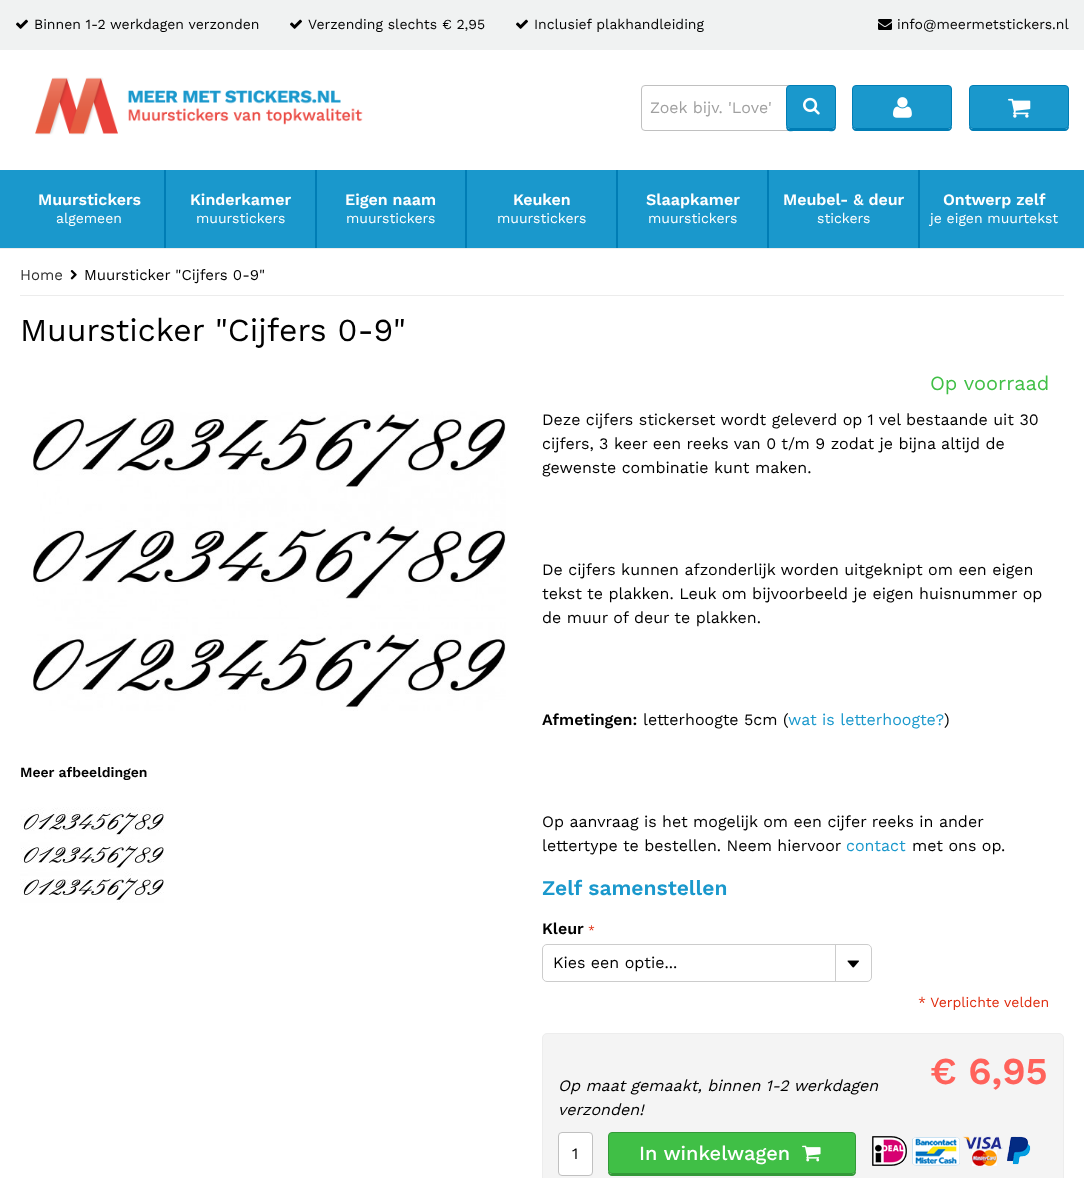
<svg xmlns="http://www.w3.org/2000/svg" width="1084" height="1178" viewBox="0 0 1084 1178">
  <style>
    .t1 { font: 14px Work Sans; fill: #000; }
    .t2 { font: 16px Work Sans; fill: #a0a0a0; }
    .t3 { font: 600 16px Work Sans; fill: #fff; }
    .t4 { font: 14px Work Sans; fill: #fff; }
    .t5 { font: 15px Work Sans; fill: #303030; }
    .t6 { font: 15px Work Sans; fill: #000; }
    .t7 { font: 32px Work Sans; fill: #000; }
    .t8 { font: 600 14px Work Sans; fill: #000; }
    .t9 { font: 20px Work Sans; fill: #40bf46; }
    .t10 { font: 16px Work Sans; fill: #000; }
    .t11 { font: 600 16px Work Sans; fill: #000; }
    .t12 { font: 16px Work Sans; fill: #1a98cc; }
    .t13 { font: 600 21px Work Sans; fill: #1a98cc; }
    .t14 { font: 12px Work Sans; fill: #df280a; }
    .t15 { font: 14px Work Sans; fill: #df280a; }
    .t16 { font: 600 38px Work Sans; fill: #ff625b; }
    .t17 { font: italic 16px Work Sans; fill: #000; }
    .t18 { font: 500 20px Work Sans; fill: #fff; }
  </style>
  <rect width="100%" height="100%" fill="#fff"/>
  <rect x="0" y="0" width="1084" height="50" fill="#f0f2f2"/>
  <image x="16" y="19" width="12" height="10" href="images/1.png"/>
  <text x="34" y="29" class="t1">Binnen 1-2 werkdagen verzonden</text>
  <image x="290" y="19" width="12" height="10" href="images/1.png"/>
  <text x="308" y="29" class="t1">Verzending slechts € 2,95</text>
  <image x="516" y="19" width="12" height="10" href="images/1.png"/>
  <text x="534" y="29" class="t1">Inclusief plakhandleiding</text>
  <image x="878" y="19" width="14" height="11" href="images/2.png"/>
  <text x="897" y="29" class="t1">info@meermetstickers.nl</text>
  <image x="35" y="77" width="328" height="58" href="images/3.png"/>
  <rect x="641.5" y="85.5" width="194" height="45" rx="3.5" fill="none" stroke="#c0c0c0"/>
  <text x="650" y="113" class="t2">Zoek bijv. 'Love'</text>
  <path d="M786 125C786 133 790 131 797 131H825C832 131 836 133 836 125C836 127 834 129 832 129H790C788 129 786 127 786 125Z" fill="#007db5"/>
  <rect x="786.5" y="85.5" width="49" height="43" rx="3.5" fill="#1a98cc" stroke="#007db5"/>
  <image x="803" y="97" width="17" height="18" href="images/4.png"/>
  <path d="M852 125V127C852 129 854 131 856 131H948C950 131 952 129 952 127V125C952 127 950 129 948 129H856C854 129 852 127 852 125Z" fill="#007db5"/>
  <rect x="852.5" y="85.5" width="99" height="43" rx="3.5" fill="#1a98cc" stroke="#007db5"/>
  <image x="893" y="97" width="19" height="21" href="images/5.png"/>
  <path d="M969 125V127C969 129 971 131 973 131H1065C1067 131 1069 129 1069 127V125C1069 127 1067 129 1065 129H973C971 129 969 127 969 125Z" fill="#007db5"/>
  <rect x="969.5" y="85.5" width="99" height="43" rx="3.5" fill="#1a98cc" stroke="#007db5"/>
  <image x="1008" y="98" width="23" height="20" href="images/6.png"/>
  <rect x="0" y="248" width="1084" height="1" fill="#ededed"/>
  <rect x="0" y="170" width="1084" height="78" fill="#1a98cc"/>
  <rect x="164" y="170" width="2" height="78" fill="#007db5"/>
  <text x="38" y="205" class="t3">Muurstickers</text>
  <text x="56" y="223" class="t4">algemeen</text>
  <rect x="315" y="170" width="2" height="78" fill="#007db5"/>
  <text x="190" y="205" class="t3">Kinderkamer</text>
  <text x="196" y="223" class="t4">muurstickers</text>
  <rect x="465" y="170" width="2" height="78" fill="#007db5"/>
  <text x="345" y="205" class="t3">Eigen naam</text>
  <text x="346" y="223" class="t4">muurstickers</text>
  <rect x="616" y="170" width="2" height="78" fill="#007db5"/>
  <text x="513" y="205" class="t3">Keuken</text>
  <text x="497" y="223" class="t4">muurstickers</text>
  <rect x="767" y="170" width="2" height="78" fill="#007db5"/>
  <text x="646" y="205" class="t3">Slaapkamer</text>
  <text x="648" y="223" class="t4">muurstickers</text>
  <rect x="918" y="170" width="2" height="78" fill="#007db5"/>
  <text x="783" y="205" class="t3">Meubel- &amp; deur</text>
  <text x="817" y="223" class="t4">stickers</text>
  <text x="943" y="205" class="t3">Ontwerp zelf</text>
  <text x="930" y="223" class="t4">je eigen muurtekst</text>
  <rect x="20" y="295" width="1044" height="1" fill="#ececec"/>
  <text x="20" y="280" class="t5">Home</text>
  <image x="70" y="270" width="7" height="10" href="images/7.png"/>
  <text x="84" y="280" class="t6">Muursticker "Cijfers 0-9"</text>
  <text x="20" y="341" class="t7">Muursticker "Cijfers 0-9"</text>
  <image x="33" y="411" width="473" height="300" href="images/8.png"/>
  <text x="20" y="777" class="t8">Meer afbeeldingen</text>
  <image x="20" y="807" width="144" height="96" href="images/9.png"/>
  <text x="930" y="390" class="t9">Op voorraad</text>
  <text x="542" y="425" class="t10">Deze cijfers stickerset wordt geleverd op 1 vel bestaande uit 30</text>
  <text x="542" y="449" class="t10">cijfers, 3 keer een reeks van 0 t/m 9 zodat je bijna altijd de</text>
  <text x="542" y="473" class="t10">gewenste combinatie kunt maken.</text>
  <text x="542" y="575" class="t10">De cijfers kunnen afzonderlijk worden uitgeknipt om een eigen</text>
  <text x="542" y="599" class="t10">tekst te plakken. Leuk om bijvoorbeeld je eigen huisnummer op</text>
  <text x="542" y="623" class="t10">de muur of deur te plakken.</text>
  <text x="542" y="725" class="t11">Afmetingen:</text>
  <text x="643" y="725" class="t10">letterhoogte 5cm (</text>
  <text x="788" y="725" class="t12">wat is letterhoogte?</text>
  <text x="944" y="725" class="t10">)</text>
  <text x="542" y="827" class="t10">Op aanvraag is het mogelijk om een cijfer reeks in ander</text>
  <text x="542" y="851" class="t10">lettertype te bestellen. Neem hiervoor</text>
  <text x="846" y="851" class="t12">contact</text>
  <text x="912" y="851" class="t10">met ons op.</text>
  <text x="542" y="895" class="t13">Zelf samenstellen</text>
  <text x="542" y="934" class="t11">Kleur</text>
  <text x="588" y="934" class="t14">*</text>
  <image x="835" y="945" width="24" height="36" href="images/10.png"/>
  <rect x="542.5" y="944.5" width="329" height="37" rx="4.5" fill="none" stroke="#ccc"/>
  <text x="553" y="968" class="t10">Kies een optie...</text>
  <text x="918" y="1007" class="t15">* Verplichte velden</text>
  <rect x="542.5" y="1033.5" width="521" height="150" rx="4.5" fill="#f4f4f4" stroke="#ededed"/>
  <text x="930" y="1084" class="t16">€ 6,95</text>
  <text x="558" y="1091" class="t17">Op maat gemaakt, binnen 1-2 werkdagen</text>
  <text x="558" y="1115" class="t17">verzonden!</text>
  <rect x="558.5" y="1132.5" width="34" height="43" rx="3.5" fill="#fff" stroke="#c0c0c0"/>
  <text x="572" y="1159" class="t10">1</text>
  <path d="M608 1170V1172C608 1174 610 1176 612 1176H852C854 1176 856 1174 856 1172V1170C856 1172 854 1174 852 1174H612C610 1174 608 1172 608 1170Z" fill="#339938"/>
  <rect x="608.5" y="1132.5" width="247" height="41" rx="3.5" fill="#40bf46" stroke="#339938"/>
  <text x="639" y="1160" class="t18">In winkelwagen</text>
  <image x="802" y="1145" width="19" height="17" href="images/11.png"/>
  <image x="872" y="1136" width="159" height="30" href="images/12.png"/>
</svg>
